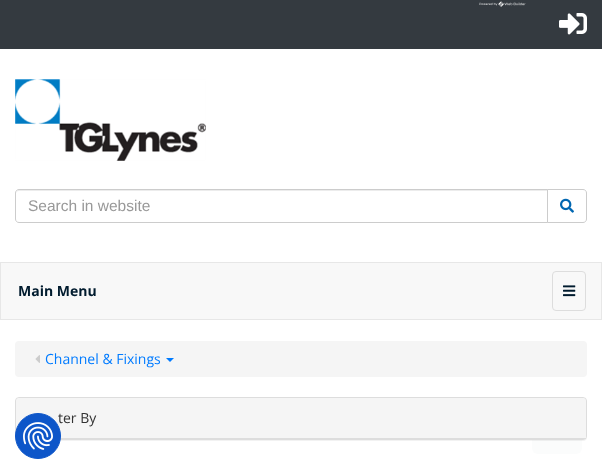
<svg xmlns="http://www.w3.org/2000/svg" width="602" height="474" viewBox="0 0 602 474">
  <style>
    .t1 { font: 15.5px Liberation Sans; fill: #999; }
    .t2 { font: bold 14px Open Sans; fill: #001b2e; }
    .t3 { font: 14px Open Sans; fill: #007bff; }
    .t4 { font: 14px Open Sans; fill: #333; }
  </style>
  <rect width="100%" height="100%" fill="#fff"/>
  <rect x="0" y="0" width="602" height="49" fill="#343a40"/>
  <image x="479" y="1" width="47" height="6" href="images/1.png"/>
  <image x="559" y="13" width="28" height="22" href="images/2.png"/>
  <image x="15" y="79" width="191" height="82" href="images/3.png"/>
  <path d="M19 191H547V190H19C17 190 16 192 16 194C16 192 17 191 19 191Z" fill="#ececec"/>
  <path d="M19 189.5H547.5V222.5H19C17 222.5 15.5 221 15.5 219V193C15.5 191 17 189.5 19 189.5Z" fill="none" stroke="#ccc"/>
  <text x="28" y="211" class="t1">Search in website</text>
  <path d="M547.5 189.5H583C585 189.5 586.5 191 586.5 193V219C586.5 221 585 222.5 583 222.5H547.5Z" fill="#fff" stroke="#ccc"/>
  <image x="560" y="198" width="14" height="15" href="images/4.png"/>
  <rect x="0.5" y="262.5" width="601" height="57" fill="#f8f8f8" stroke="#e7e7e7"/>
  <text x="18" y="296" class="t2">Main Menu</text>
  <rect x="552.5" y="271.5" width="33" height="39" rx="3.5" fill="none" stroke="#ddd"/>
  <image x="563" y="285" width="13" height="12" href="images/5.png"/>
  <rect x="532" y="408" width="50" height="46" rx="6" fill="#fbfcfc"/>
  <rect x="15" y="341" width="572" height="36" rx="4" fill="#f5f5f5"/>
  <image x="35" y="355" width="5" height="8" href="images/6.png"/>
  <text x="45" y="364" class="t3">Channel &amp; Fixings</text>
  <path d="M166 358H174L170 362Z" fill="#007bff"/>
  <rect x="15" y="398" width="572" height="43" rx="4" fill="#0000000d" filter="blur(0.5px)"/>
  <rect x="15.5" y="397.5" width="571" height="42" rx="3.5" fill="none" stroke="#ddd"/>
  <path d="M19 398H583C584.5 398 586 399.5 586 401V439H16V401C16 399.5 17.5 398 19 398Z" fill="#f5f5f5"/>
  <rect x="60" y="438" width="526" height="1" fill="#ddd"/>
  <text x="58" y="423" class="t4">ter By</text>
  <circle cx="38" cy="436" r="22.5" fill="#0d56c9" stroke="#0d56c9"/>
  <image x="23" y="422" width="30" height="28" href="images/7.png"/>
</svg>
